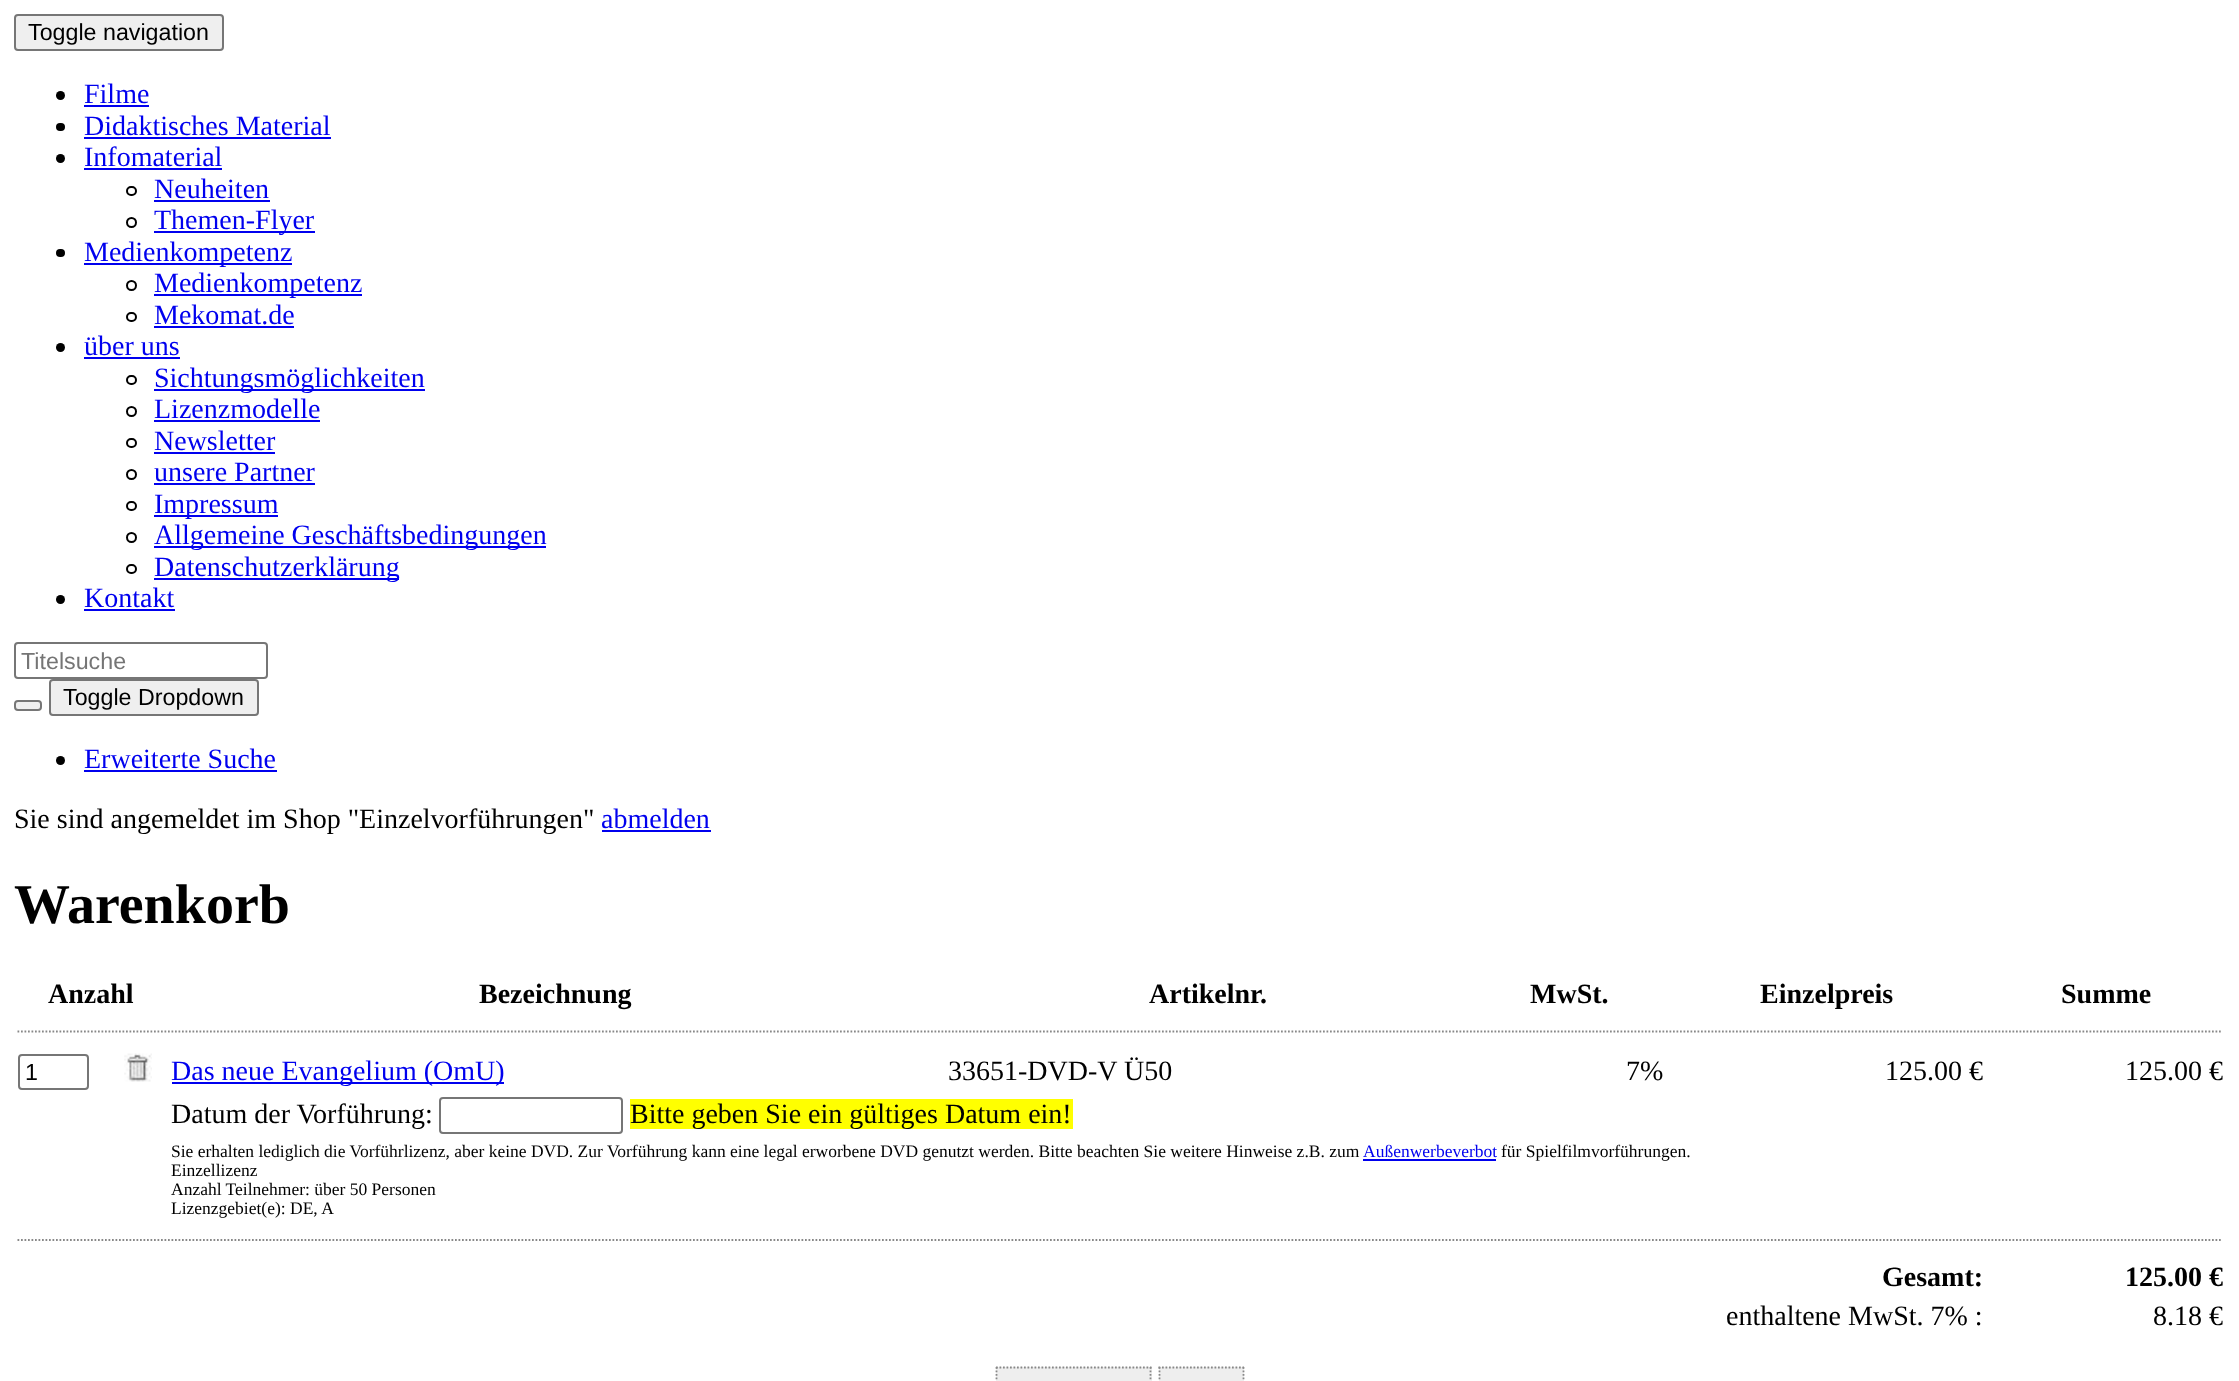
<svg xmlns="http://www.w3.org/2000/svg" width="2239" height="1381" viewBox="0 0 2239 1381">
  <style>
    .t1 { font: 23.25px Liberation Sans; fill: #000; }
    .t2 { font: 28px Liberation Serif; fill: #00e; }
    .t3 { font: 23.25px Liberation Sans; fill: #757575; }
    .t4 { font: 28px Liberation Serif; fill: #000; }
    .t5 { font: bold 56px Liberation Serif; fill: #000; }
    .t6 { font: bold 28px Liberation Serif; fill: #000; }
    .t7 { font: 17.5px Liberation Serif; fill: #000; }
    .t8 { font: 17.5px Liberation Serif; fill: #00e; }
  </style>
  <rect width="100%" height="100%" fill="#fff"/>
  <rect x="15" y="15" width="208" height="35" rx="3" fill="#efefef" stroke="#767676" stroke-width="2"/>
  <text x="28" y="40" class="t1">Toggle navigation</text>
  <circle cx="60.5" cy="95.5" r="4.5" fill="#000"/>
  <text x="84" y="103" class="t2">Filme</text>
  <rect x="84" y="105" width="65" height="2" fill="#00e"/>
  <rect x="56" y="123" width="9" height="8" rx="4" fill="#000"/>
  <text x="84" y="135" class="t2">Didaktisches Material</text>
  <rect x="84" y="137" width="247" height="2" fill="#00e"/>
  <circle cx="60.5" cy="158.5" r="4.5" fill="#000"/>
  <text x="84" y="166" class="t2">Infomaterial</text>
  <rect x="84" y="168" width="138" height="2" fill="#00e"/>
  <rect x="127" y="187" width="9" height="8" rx="4" fill="none" stroke="#000" stroke-width="2"/>
  <text x="154" y="198" class="t2">Neuheiten</text>
  <rect x="154" y="200" width="116" height="2" fill="#00e"/>
  <circle cx="131.5" cy="222.5" r="4.5" fill="none" stroke="#000" stroke-width="2"/>
  <rect x="154" y="231" width="161" height="2" fill="#00e"/>
  <text x="154" y="229" class="t2">Themen-Flyer</text>
  <rect x="56" y="249" width="9" height="8" rx="4" fill="#000"/>
  <rect x="84" y="263" width="208" height="2" fill="#00e"/>
  <text x="84" y="261" class="t2">Medienkompetenz</text>
  <circle cx="131.5" cy="285.5" r="4.5" fill="none" stroke="#000" stroke-width="2"/>
  <rect x="154" y="294" width="208" height="2" fill="#00e"/>
  <text x="154" y="292" class="t2">Medienkompetenz</text>
  <rect x="127" y="313" width="9" height="8" rx="4" fill="none" stroke="#000" stroke-width="2"/>
  <text x="154" y="324" class="t2">Mekomat.de</text>
  <rect x="154" y="326" width="140" height="2" fill="#00e"/>
  <circle cx="60.5" cy="347.5" r="4.5" fill="#000"/>
  <text x="84" y="355" class="t2">über uns</text>
  <rect x="84" y="357" width="96" height="2" fill="#00e"/>
  <rect x="127" y="376" width="9" height="8" rx="4" fill="none" stroke="#000" stroke-width="2"/>
  <rect x="154" y="389" width="271" height="2" fill="#00e"/>
  <text x="154" y="387" class="t2">Sichtungsmöglichkeiten</text>
  <circle cx="131.5" cy="411.5" r="4.5" fill="none" stroke="#000" stroke-width="2"/>
  <text x="154" y="418" class="t2">Lizenzmodelle</text>
  <rect x="154" y="420" width="166" height="2" fill="#00e"/>
  <rect x="127" y="439" width="9" height="8" rx="4" fill="none" stroke="#000" stroke-width="2"/>
  <text x="154" y="450" class="t2">Newsletter</text>
  <rect x="154" y="452" width="121" height="2" fill="#00e"/>
  <circle cx="131.5" cy="474.5" r="4.5" fill="none" stroke="#000" stroke-width="2"/>
  <text x="154" y="481" class="t2">unsere Partner</text>
  <rect x="154" y="483" width="161" height="2" fill="#00e"/>
  <rect x="127" y="502" width="9" height="8" rx="4" fill="none" stroke="#000" stroke-width="2"/>
  <rect x="154" y="515" width="124" height="2" fill="#00e"/>
  <text x="154" y="513" class="t2">Impressum</text>
  <circle cx="131.5" cy="537.5" r="4.5" fill="none" stroke="#000" stroke-width="2"/>
  <rect x="154" y="546" width="392" height="2" fill="#00e"/>
  <text x="154" y="544" class="t2">Allgemeine Geschäftsbedingungen</text>
  <rect x="127" y="565" width="9" height="8" rx="4" fill="none" stroke="#000" stroke-width="2"/>
  <rect x="154" y="578" width="245" height="2" fill="#00e"/>
  <text x="154" y="576" class="t2">Datenschutzerklärung</text>
  <circle cx="60.5" cy="599.5" r="4.5" fill="#000"/>
  <text x="84" y="607" class="t2">Kontakt</text>
  <rect x="84" y="609" width="91" height="2" fill="#00e"/>
  <rect x="15" y="643" width="252" height="35" rx="3" fill="none" stroke="#767676" stroke-width="2"/>
  <text x="21" y="669" class="t3">Titelsuche</text>
  <rect x="15" y="701" width="26" height="9" rx="3" fill="#efefef" stroke="#767676" stroke-width="2"/>
  <rect x="50" y="680" width="208" height="35" rx="3" fill="#efefef" stroke="#767676" stroke-width="2"/>
  <text x="63" y="705" class="t1">Toggle Dropdown</text>
  <circle cx="60.5" cy="760.5" r="4.5" fill="#000"/>
  <text x="84" y="768" class="t2">Erweiterte Suche</text>
  <rect x="84" y="770" width="193" height="2" fill="#00e"/>
  <text x="14" y="828" class="t4">Sie sind angemeldet im Shop "Einzelvorführungen"</text>
  <text x="601" y="828" class="t2">abmelden</text>
  <rect x="602" y="830" width="109" height="2" fill="#00e"/>
  <text x="14" y="923" class="t5">Warenkorb</text>
  <text x="48" y="1003" class="t6">Anzahl</text>
  <text x="479" y="1003" class="t6">Bezeichnung</text>
  <text x="1149" y="1003" class="t6">Artikelnr.</text>
  <text x="1530" y="1003" class="t6">MwSt.</text>
  <text x="1760" y="1003" class="t6">Einzelpreis</text>
  <text x="2061" y="1003" class="t6">Summe</text>
  <path d="M17.5 1031.5H2222.5" fill="none" stroke="#888" stroke-width="1.8" stroke-dasharray="1.75 1.75"/>
  <rect x="19" y="1055" width="69" height="34" rx="3" fill="none" stroke="#767676" stroke-width="2"/>
  <text x="25" y="1080" class="t1">1</text>
  <image x="124" y="1053" width="28" height="29" href="images/1.png"/>
  <rect x="172" y="1082" width="332" height="2" fill="#00e"/>
  <text x="171" y="1080" class="t2">Das neue Evangelium (OmU)</text>
  <text x="948" y="1080" class="t4">33651-DVD-V Ü50</text>
  <text x="1626" y="1080" class="t4">7%</text>
  <text x="1885" y="1080" class="t4">125.00 €</text>
  <text x="2125" y="1080" class="t4">125.00 €</text>
  <text x="171" y="1123" class="t4">Datum der Vorführung:</text>
  <rect x="440" y="1098" width="182" height="35" rx="3" fill="none" stroke="#767676" stroke-width="2"/>
  <rect x="630" y="1099" width="443" height="30" fill="#ff0"/>
  <text x="630" y="1123" class="t4">Bitte geben Sie ein gültiges Datum ein!</text>
  <text x="171" y="1157" class="t7">Sie erhalten lediglich die Vorführlizenz, aber keine DVD. Zur Vorführung kann eine legal erworbene DVD genutzt werden. Bitte beachten Sie weitere Hinweise z.B. zum</text>
  <text x="1363" y="1157" class="t8">Außenwerbeverbot</text>
  <rect x="1363" y="1159" width="133" height="2" fill="#00e"/>
  <text x="1501" y="1157" class="t7">für Spielfilmvorführungen.</text>
  <text x="171" y="1176" class="t7">Einzellizenz</text>
  <text x="171" y="1195" class="t7">Anzahl Teilnehmer: über 50 Personen</text>
  <text x="171" y="1214" class="t7">Lizenzgebiet(e): DE, A</text>
  <path d="M17.5 1240H2222.5" fill="none" stroke="#888" stroke-width="1.8" stroke-dasharray="1.75 1.75"/>
  <text x="1882" y="1286" class="t6">Gesamt:</text>
  <text x="2125" y="1286" class="t6">125.00 €</text>
  <text x="1726" y="1325" class="t4">enthaltene MwSt. 7% :</text>
  <text x="2153" y="1325" class="t4">8.18 €</text>
  <rect x="996" y="1367" width="156" height="14" fill="#eee"/>
  <path d="M996 1367.5H1151.5" fill="none" stroke="#888" stroke-width="1.8" stroke-dasharray="1.75 1.75"/>
  <path d="M1150.5 1367V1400" fill="none" stroke="#888" stroke-width="1.8" stroke-dasharray="1.75 1.75"/>
  <path d="M996.5 1367V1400" fill="none" stroke="#888" stroke-width="1.8" stroke-dasharray="1.75 1.75"/>
  <rect x="1159" y="1367" width="85" height="14" fill="#eee"/>
  <path d="M1158.5 1367.5H1244" fill="none" stroke="#888" stroke-width="1.8" stroke-dasharray="1.75 1.75"/>
  <path d="M1243.5 1367V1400" fill="none" stroke="#888" stroke-width="1.8" stroke-dasharray="1.75 1.75"/>
  <path d="M1159.5 1367V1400" fill="none" stroke="#888" stroke-width="1.8" stroke-dasharray="1.75 1.75"/>
</svg>
